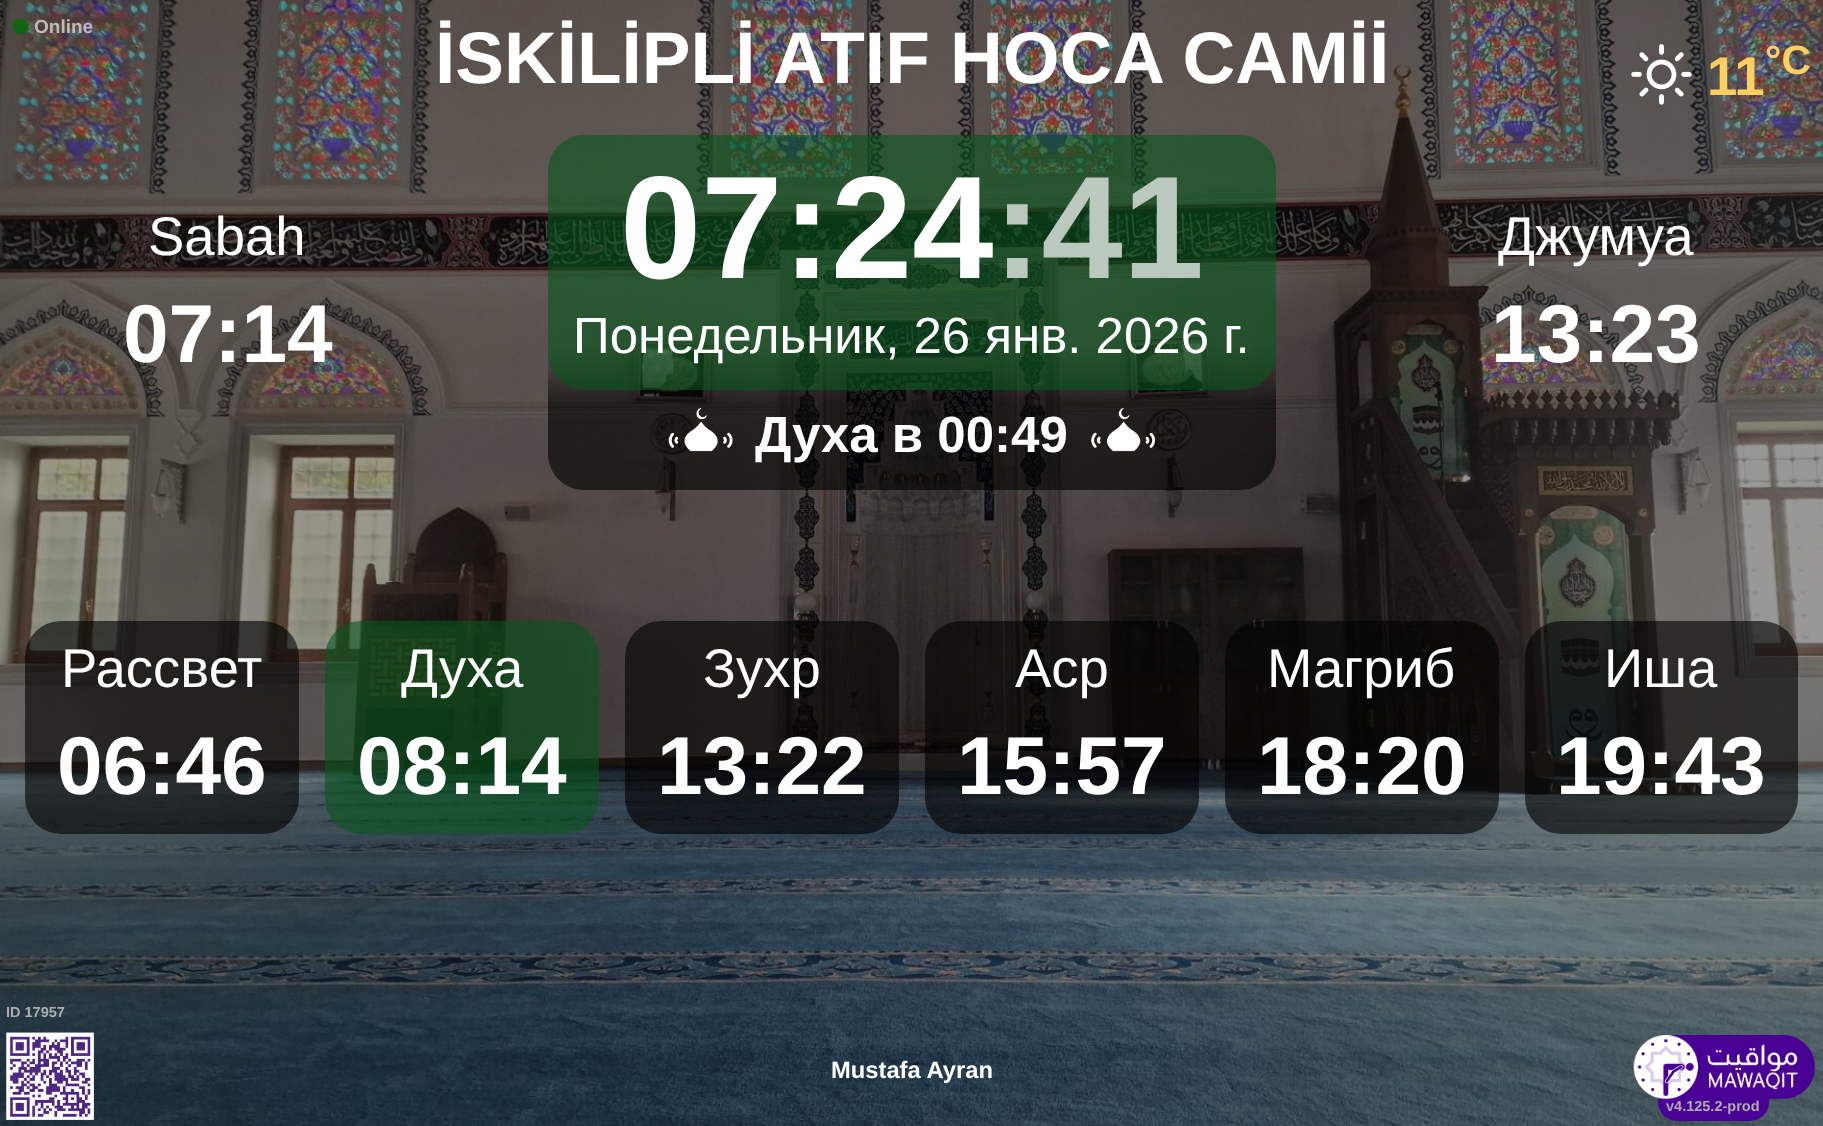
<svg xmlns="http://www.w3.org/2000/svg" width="1823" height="1126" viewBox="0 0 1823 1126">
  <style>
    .t1 { font: bold 19px Liberation Sans; fill: #bdbbbb; }
    .t2 { font: bold 73px Liberation Sans; fill: #fff; }
    .t3 { font: bold 54.5px Liberation Sans; fill: #ffd05f; }
    .t4 { font: bold 41px Liberation Sans; fill: #ffd05f; }
    .t5 { font: 54.5px Liberation Sans; fill: #fff; }
    .t6 { font: bold 82px Liberation Sans; fill: #fff; }
    .t7 { font: bold 146px Liberation Sans; fill: #fff; }
    .t8 { font: bold 146px Liberation Sans; fill: #bbc8be; }
    .t9 { font: 51px Liberation Sans; fill: #fff; }
    .t10 { font: bold 51px Liberation Sans; fill: #fff; }
    .t11 { font: bold 14.5px Liberation Sans; fill: #adadad; }
    .t12 { font: bold 23.75px Liberation Sans; fill: #fff; }
  </style>
  <rect width="100%" height="100%" fill="#fff"/>
  <image x="0" y="0" width="1823" height="1126" href="images/1.png"/>
  <path d="M15 21C22.5 13.5 33.5 24.5 26 32C19 39.5 7.5 28 15 21Z" fill="#126611"/>
  <text x="34" y="33" class="t1">Online</text>
  <text x="435" y="83" class="t2">İSKİLİPLİ ATIF HOCA CAMİİ</text>
  <image x="1631" y="44" width="61" height="61" href="images/2.png"/>
  <text x="1707" y="95" class="t3">11</text>
  <text x="1765" y="74" class="t4">°C</text>
  <text x="148" y="255" class="t5">Sabah</text>
  <text x="123" y="362" class="t6">07:14</text>
  <rect x="548" y="135" width="728" height="255" rx="36" fill="#06571c99"/>
  <text x="620" y="278" class="t7">07:24</text>
  <text x="993" y="278" class="t8">:41</text>
  <text x="573" y="353" class="t9">Понедельник, 26 янв. 2026 г.</text>
  <image x="668" y="407" width="65" height="45" href="images/3.png"/>
  <text x="755" y="452" class="t10">Духа в 00:49</text>
  <image x="1091" y="407" width="64" height="45" href="images/4.png"/>
  <text x="1498" y="255" class="t5">Джумуа</text>
  <text x="1491" y="362" class="t6">13:23</text>
  <rect x="25" y="621" width="274" height="213" rx="36" fill="#00000099"/>
  <text x="61" y="687" class="t5">Рассвет</text>
  <text x="57" y="794" class="t6">06:46</text>
  <rect x="325" y="621" width="274" height="213" rx="36" fill="#06571c99"/>
  <text x="401" y="687" class="t5">Духа</text>
  <text x="357" y="794" class="t6">08:14</text>
  <rect x="625" y="621" width="274" height="213" rx="36" fill="#00000099"/>
  <text x="703" y="687" class="t5">Зухр</text>
  <text x="657" y="794" class="t6">13:22</text>
  <rect x="925" y="621" width="274" height="213" rx="36" fill="#00000099"/>
  <text x="1015" y="687" class="t5">Аср</text>
  <text x="957" y="794" class="t6">15:57</text>
  <rect x="1225" y="621" width="274" height="213" rx="36" fill="#00000099"/>
  <text x="1267" y="687" class="t5">Магриб</text>
  <text x="1257" y="794" class="t6">18:20</text>
  <rect x="1525" y="621" width="273" height="213" rx="36" fill="#00000099"/>
  <text x="1604" y="687" class="t5">Иша</text>
  <text x="1556" y="794" class="t6">19:43</text>
  <text x="6" y="1017" class="t11">ID 17957</text>
  <image x="6" y="1032" width="88" height="88" href="images/5.png"/>
  <text x="831" y="1078" class="t12">Mustafa Ayran</text>
  <path d="M1658 1093H1769V1102C1769 1112.5 1760.5 1121 1750 1121H1677C1666.5 1121 1658 1112.5 1658 1102Z" fill="#490094"/>
  <image x="1633" y="1035" width="182" height="65" href="images/6.png"/>
  <text x="1666" y="1111" class="t11">v4.125.2-prod</text>
</svg>
